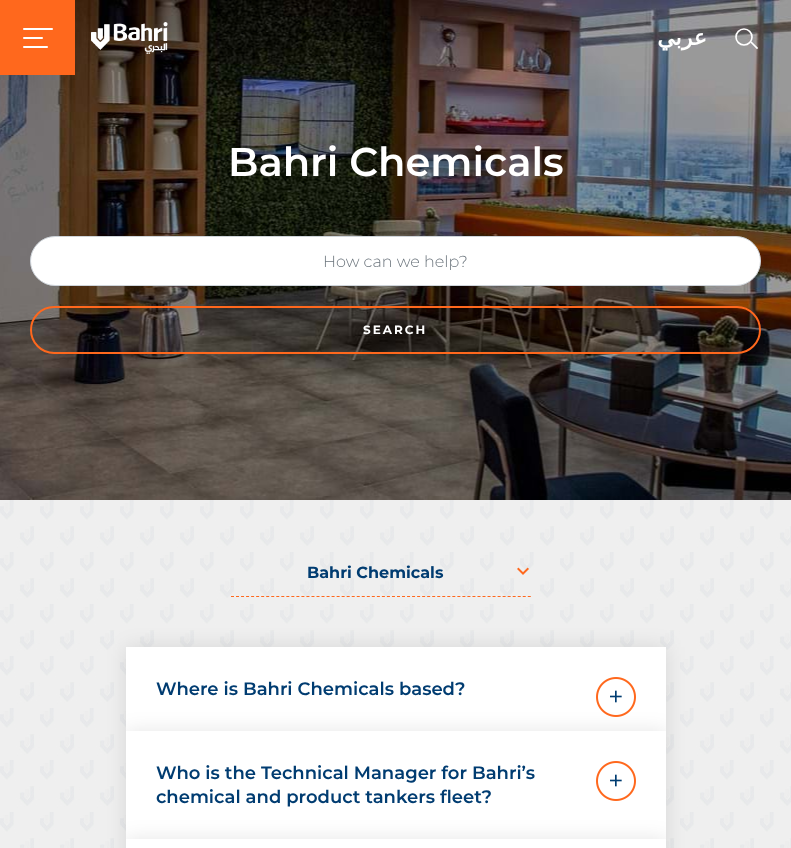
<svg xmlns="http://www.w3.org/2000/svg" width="791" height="848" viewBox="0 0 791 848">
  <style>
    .t1 { font: bold 22px DejaVu Sans; direction: rtl; fill: #fff; }
    .t2 { font: 600 40px Montserrat; fill: #fff; }
    .t3 { font: 300 16px Montserrat; fill: #6c757d; }
    .t4 { font: bold 12px Montserrat; letter-spacing: 2px; fill: #fff; }
    .t5 { font: bold 16px Montserrat; fill: #003c71; }
    .t6 { font: 600 18px Montserrat; fill: #003c71; }
  </style>
  <rect width="100%" height="100%" fill="#fff"/>
  <image x="0" y="0" width="791" height="500" href="images/3.png"/>
  <rect x="0" y="0" width="75" height="75" fill="#ff681d"/>
  <image x="23" y="28" width="30" height="20" href="images/1.png"/>
  <image x="91" y="22" width="77" height="32" href="images/2.png"/>
  <text x="707" y="45" class="t1">عربي</text>
  <circle cx="744" cy="37" r="8" fill="none" stroke="#fff" stroke-width="1.6"/>
  <path d="M751.5 42.5L757 48" fill="none" stroke="#fff" stroke-width="1.6" stroke-linecap="square"/>
  <text x="228" y="176" class="t2">Bahri Chemicals</text>
  <rect x="30.5" y="236.5" width="730" height="49" rx="24.5" fill="#fff" stroke="#ced4da"/>
  <text x="323" y="267" class="t3">How can we help?</text>
  <rect x="31" y="307" width="729" height="46" rx="23" fill="none" stroke="#ff681d" stroke-width="2"/>
  <text x="363" y="334" class="t4">SEARCH</text>
  <image x="0" y="500" width="791" height="348" href="images/4.png"/>
  <path d="M231 596.5H531" fill="none" stroke="#ff681d" stroke-dasharray="3 2.03"/>
  <text x="307" y="578" class="t5">Bahri Chemicals</text>
  <image x="517" y="567" width="12" height="8" href="images/5.png"/>
  <rect x="126" y="647" width="540" height="84" fill="#0000001a" filter="blur(10px)"/>
  <rect x="126" y="647" width="540" height="84" fill="#fff"/>
  <text x="156" y="695" class="t6">Where is Bahri Chemicals based?</text>
  <rect x="126" y="731" width="540" height="108" fill="#0000001a" filter="blur(10px)"/>
  <image x="596" y="677" width="40" height="40" href="images/6.png"/>
  <rect x="126" y="731" width="540" height="108" fill="#fff"/>
  <text x="156" y="779" class="t6">Who is the Technical Manager for Bahri’s</text>
  <text x="156" y="803" class="t6">chemical and product tankers fleet?</text>
  <image x="596" y="761" width="40" height="40" href="images/7.png"/>
  <rect x="126" y="839" width="540" height="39" fill="#0000001a" filter="blur(10px)"/>
  <rect x="126" y="839" width="540" height="9" fill="#fff"/>
</svg>
